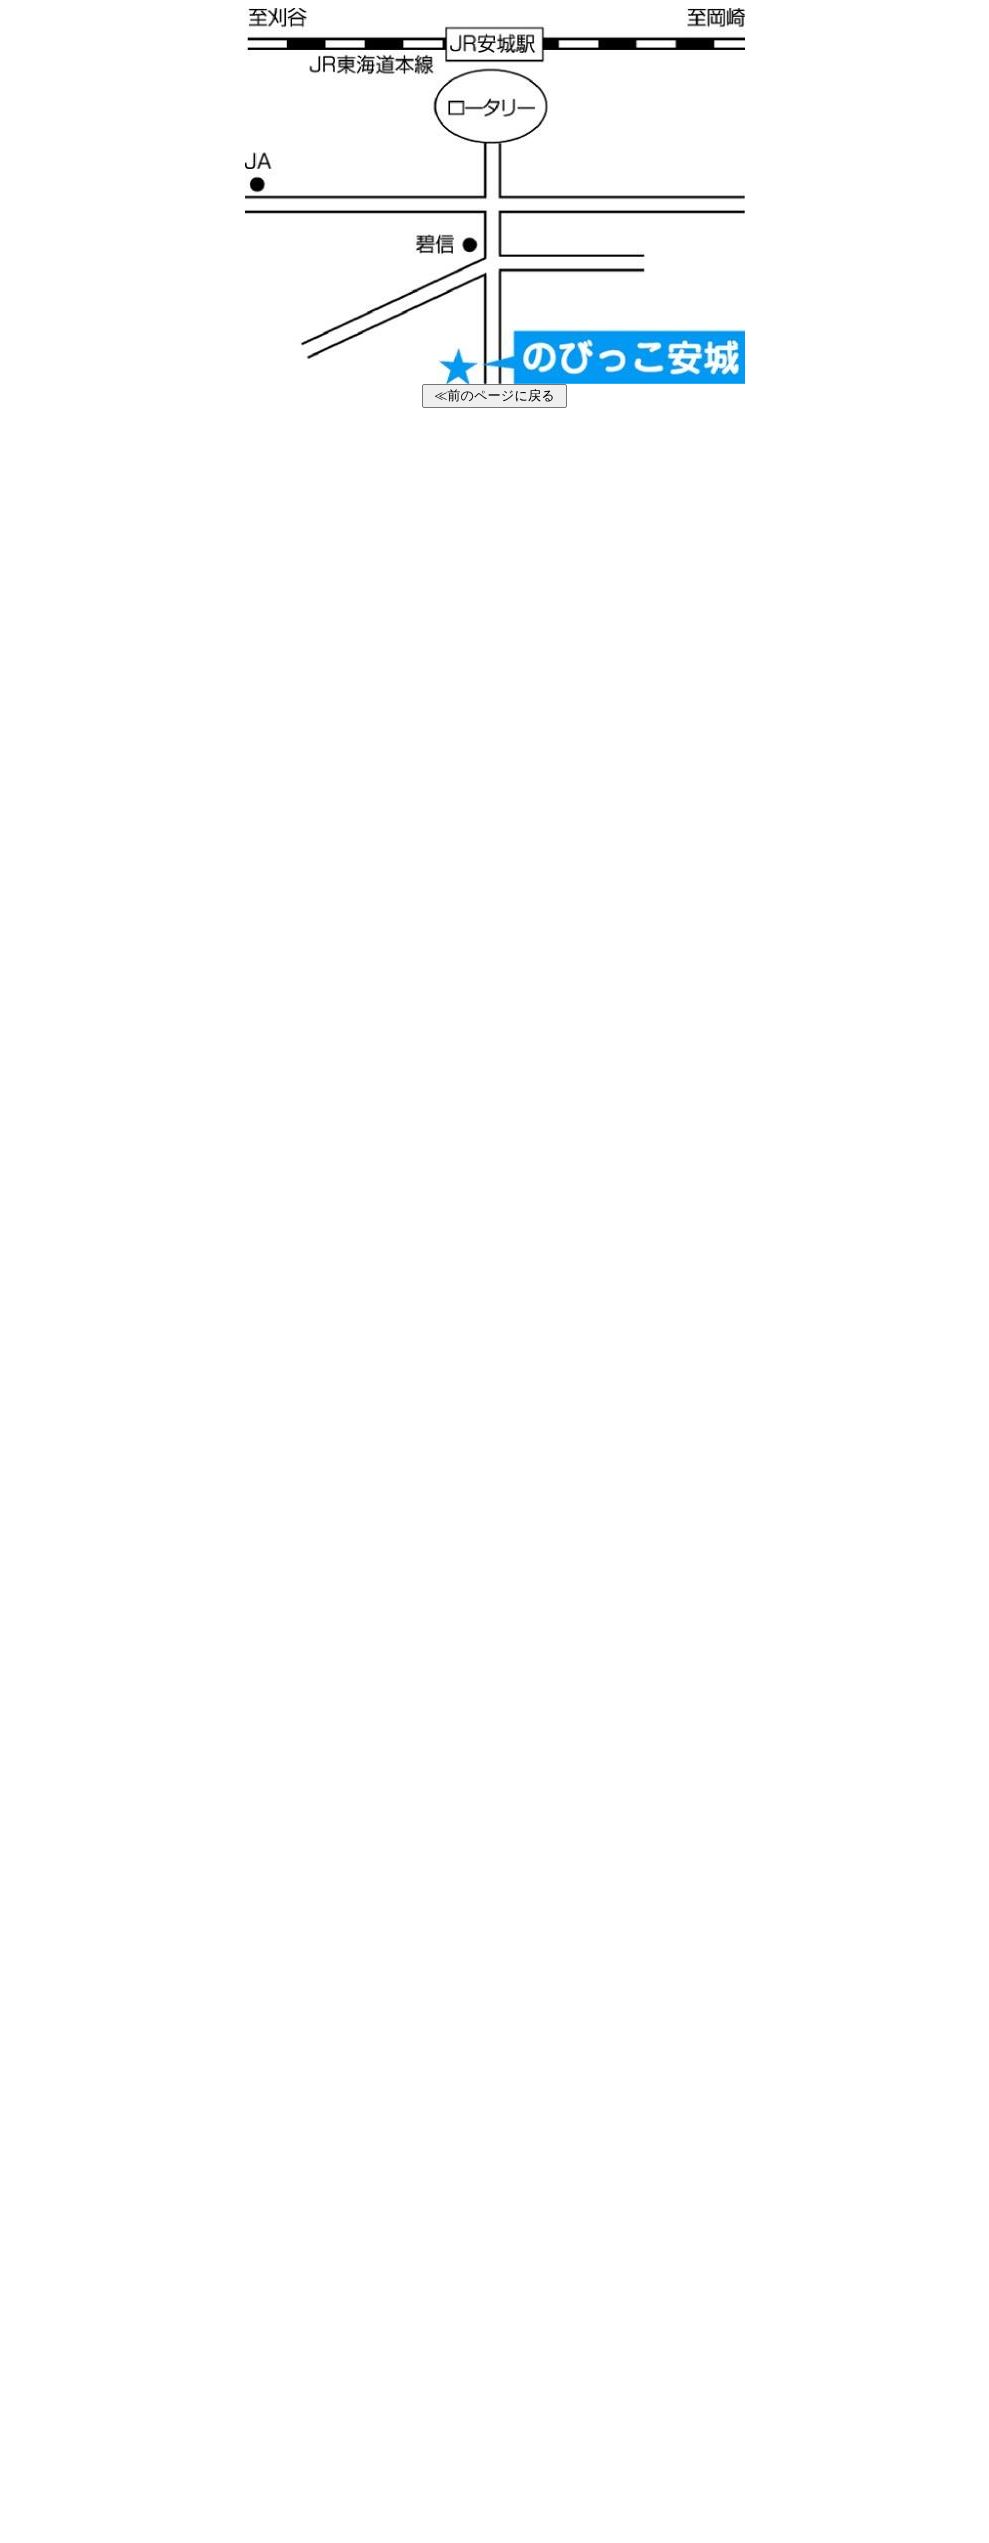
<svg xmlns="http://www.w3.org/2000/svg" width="989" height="2543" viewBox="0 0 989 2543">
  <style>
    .t1 { font: 500 13.25px WenQuanYi Zen Hei; fill: #000; }
  </style>
  <rect width="100%" height="100%" fill="#fff"/>
  <image x="245" y="8" width="500" height="376" href="images/1.png"/>
  <rect x="422.5" y="384.5" width="144" height="23" rx="1.5" fill="#efefef" stroke="#767676"/>
  <text x="434" y="400" class="t1">≪前のページに戻る</text>
</svg>
